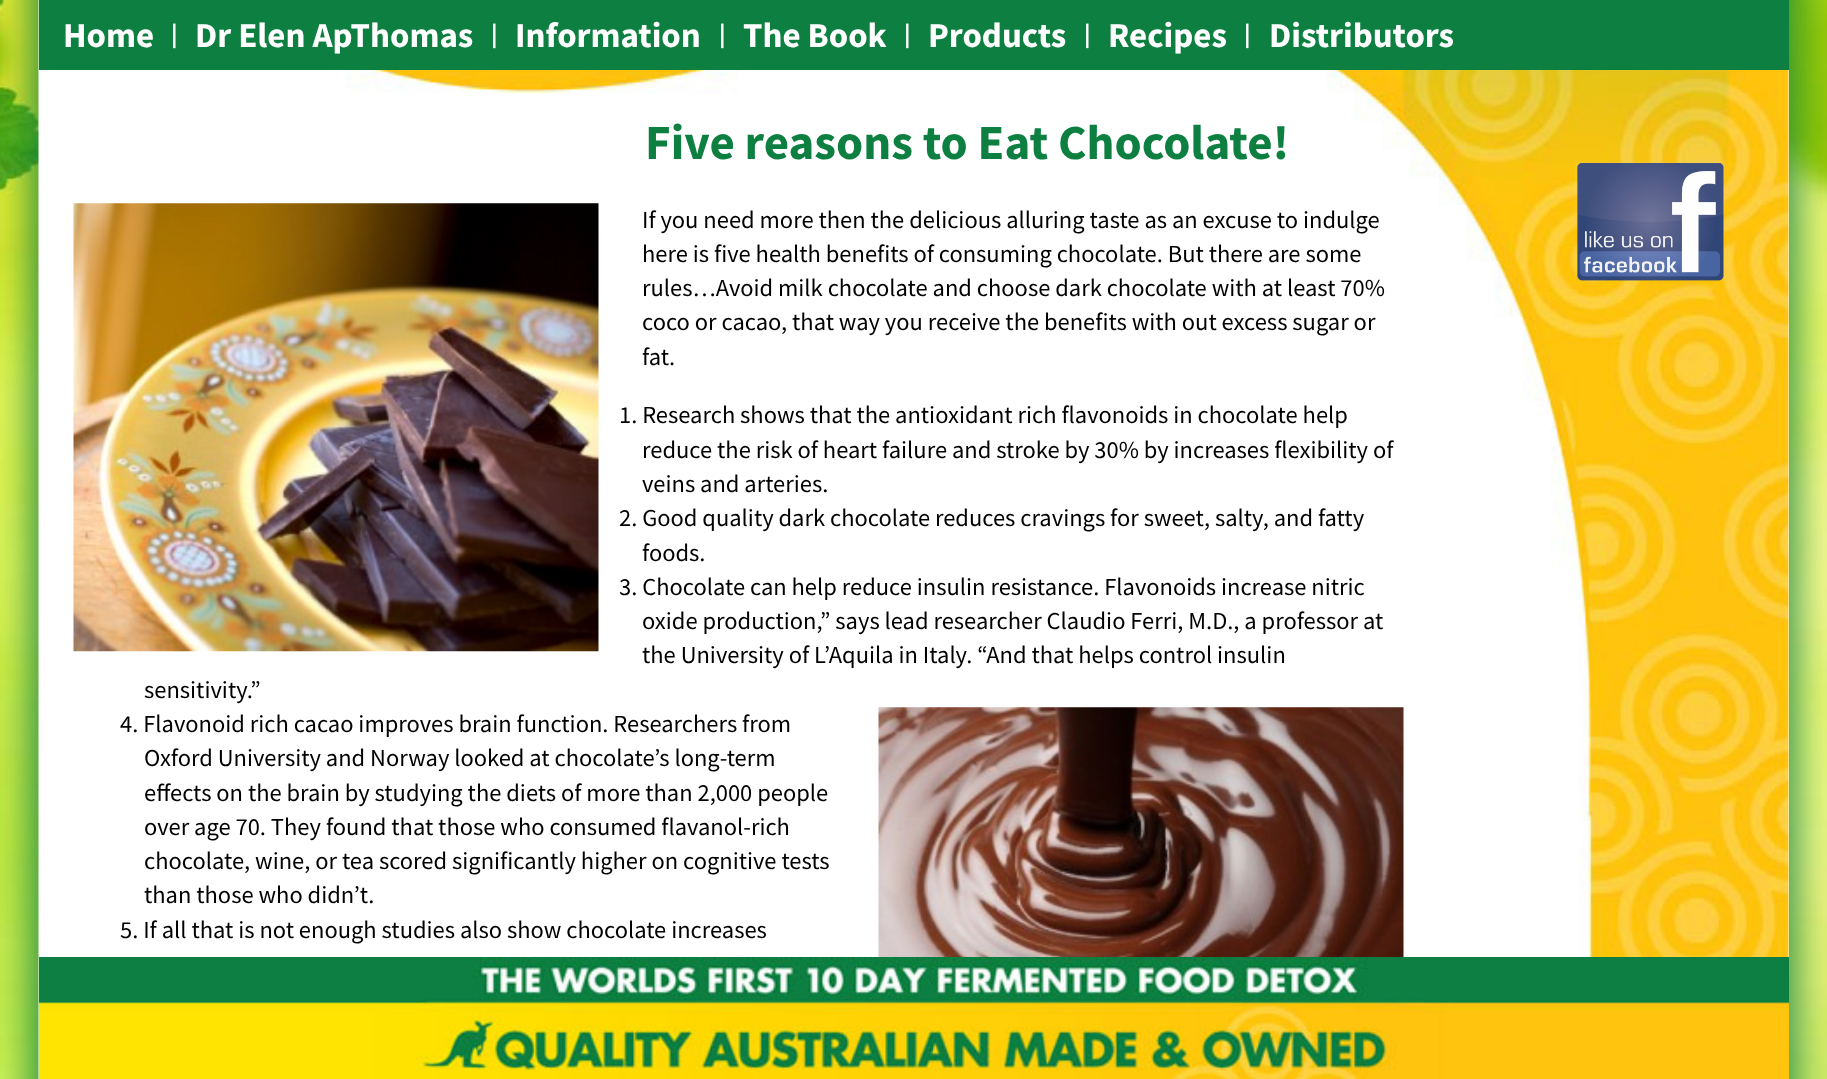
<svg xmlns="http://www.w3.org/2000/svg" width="1827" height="1079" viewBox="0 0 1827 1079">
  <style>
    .t1 { font: bold 35px Source Sans Pro; fill: #fff; }
    .t2 { font: bold 24.5px Source Sans Pro; fill: #fff; }
    .t3 { font: bold 49px Source Sans Pro; fill: #0d7f40; }
    .t4 { font: 24.5px Source Sans Pro; fill: #000; }
  </style>
  <rect width="100%" height="100%" fill="#fff"/>
  <image x="0" y="0" width="1827" height="1079" href="images/1.png"/>
  <rect x="30" y="-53" width="1767" height="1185" fill="#0d7f40cc" filter="blur(17.5px)"/>
  <rect x="1788" y="70" width="1" height="887" fill="#fff"/>
  <image x="38" y="0" width="1751" height="1079" href="images/2.png"/>
  <rect x="39" y="0" width="1750" height="70" fill="#0d7f40"/>
  <text x="63" y="47" class="t1">Home</text>
  <text x="171" y="42" class="t2">|</text>
  <text x="195" y="47" class="t1">Dr Elen ApThomas</text>
  <text x="491" y="42" class="t2">|</text>
  <text x="515" y="47" class="t1">Information</text>
  <text x="719" y="42" class="t2">|</text>
  <text x="743" y="47" class="t1">The Book</text>
  <text x="904" y="42" class="t2">|</text>
  <text x="928" y="47" class="t1">Products</text>
  <text x="1084" y="42" class="t2">|</text>
  <text x="1108" y="47" class="t1">Recipes</text>
  <text x="1244" y="42" class="t2">|</text>
  <text x="1269" y="47" class="t1">Distributors</text>
  <text x="645" y="159" class="t3">Five reasons to Eat Chocolate!</text>
  <image x="73" y="203" width="526" height="449" href="images/3.png"/>
  <text x="642" y="228" class="t4">If you need more then the delicious alluring taste as an excuse to indulge</text>
  <text x="642" y="262" class="t4">here is five health benefits of consuming chocolate. But there are some</text>
  <text x="642" y="296" class="t4">rules…Avoid milk chocolate and choose dark chocolate with at least 70%</text>
  <text x="642" y="330" class="t4">coco or cacao, that way you receive the benefits with out excess sugar or</text>
  <text x="642" y="365" class="t4">fat.</text>
  <text x="619" y="423" class="t4">1. Research shows that the antioxidant rich flavonoids in chocolate help</text>
  <text x="642" y="458" class="t4">reduce the risk of heart failure and stroke by 30% by increases flexibility of</text>
  <text x="642" y="492" class="t4">veins and arteries.</text>
  <text x="619" y="526" class="t4">2. Good quality dark chocolate reduces cravings for sweet, salty, and fatty</text>
  <text x="642" y="561" class="t4">foods.</text>
  <text x="619" y="595" class="t4">3. Chocolate can help reduce insulin resistance. Flavonoids increase nitric</text>
  <text x="642" y="629" class="t4">oxide production,” says lead researcher Claudio Ferri, M.D., a professor at</text>
  <text x="642" y="663" class="t4">the University of L’Aquila in Italy. “And that helps control insulin</text>
  <text x="144" y="698" class="t4">sensitivity.”</text>
  <text x="120" y="732" class="t4">4. Flavonoid rich cacao improves brain function. Researchers from</text>
  <image x="878" y="707" width="526" height="250" href="images/4.png"/>
  <text x="144" y="766" class="t4">Oxford University and Norway looked at chocolate’s long-term</text>
  <text x="144" y="801" class="t4">effects on the brain by studying the diets of more than 2,000 people</text>
  <text x="144" y="835" class="t4">over age 70. They found that those who consumed flavanol-rich</text>
  <text x="144" y="869" class="t4">chocolate, wine, or tea scored significantly higher on cognitive tests</text>
  <text x="144" y="903" class="t4">than those who didn’t.</text>
  <text x="120" y="938" class="t4">5. If all that is not enough studies also show chocolate increases</text>
  <image x="1575" y="161" width="151" height="120" href="images/5.png"/>
  <image x="39" y="957" width="1750" height="122" href="images/6.png"/>
</svg>
